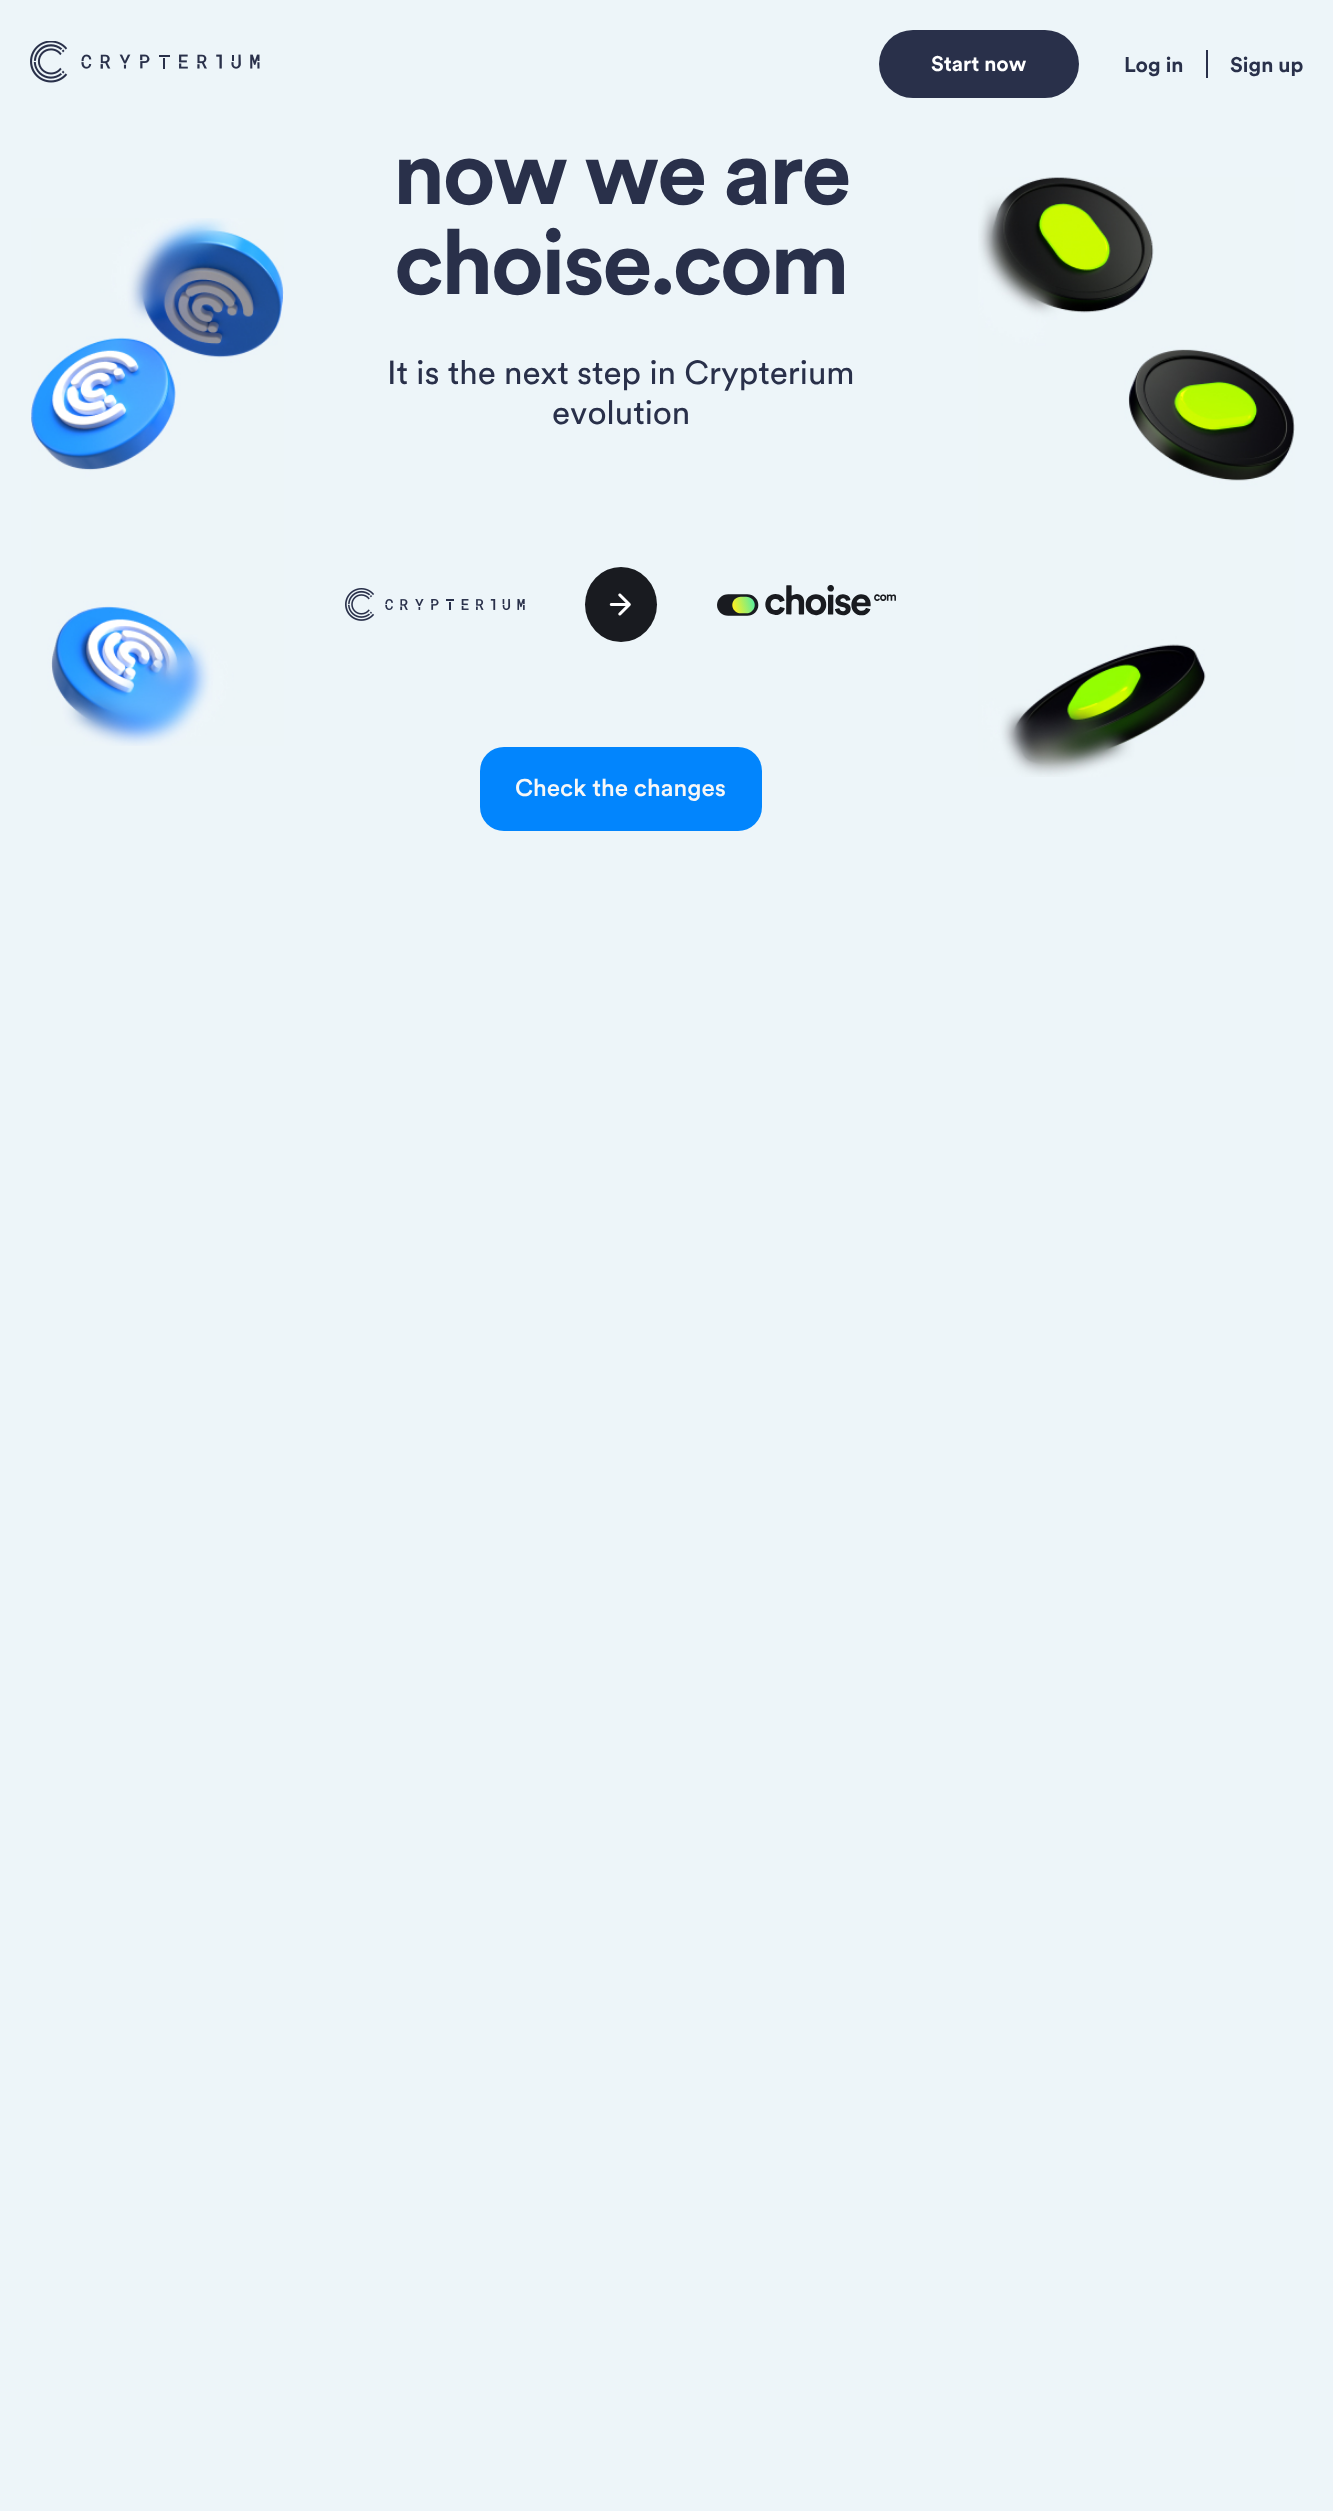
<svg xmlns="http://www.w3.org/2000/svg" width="1333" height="2511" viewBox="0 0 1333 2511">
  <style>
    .t1 { font: bold 21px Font; fill: #fff; }
    .t2 { font: bold 21px Font; fill: #29304a; }
    .t3 { font: bold 90px Font; letter-spacing: -2.75px; fill: #29304a; }
    .t4 { font: 33px Font; fill: #29304a; }
    .t5 { font: 500 24px Font; fill: #f7f7f7; }
  </style>
  <rect width="100%" height="100%" fill="#edf5f9"/>
  <image x="30" y="41" width="230" height="42" href="images/1.png"/>
  <rect x="879" y="30" width="200" height="68" rx="34" fill="#29304a"/>
  <text x="931" y="71" class="t1">Start now</text>
  <rect x="1206" y="50" width="2" height="28" fill="#29304a"/>
  <text x="1124" y="72" class="t2">Log in</text>
  <text x="1230" y="72" class="t2">Sign up</text>
  <image x="31" y="218" width="253" height="528" href="images/2.png"/>
  <text x="393" y="204" class="t3">now we are</text>
  <text x="394" y="294" class="t3">choise.com</text>
  <text x="387" y="384" class="t4">It is the next step in Crypterium</text>
  <text x="552" y="424" class="t4">evolution</text>
  <image x="345" y="588" width="180" height="33" href="images/3.png"/>
  <ellipse cx="621" cy="604.5" rx="36" ry="37.5" fill="#191b20"/>
  <image x="609" y="593" width="22" height="23" href="images/4.png"/>
  <image x="717" y="585" width="179" height="31" href="images/5.png"/>
  <rect x="480" y="747" width="282" height="84" rx="24" fill="#0285fd"/>
  <text x="515" y="796" class="t5">Check the changes</text>
  <image x="978" y="177" width="317" height="600" href="images/6.png"/>
</svg>
